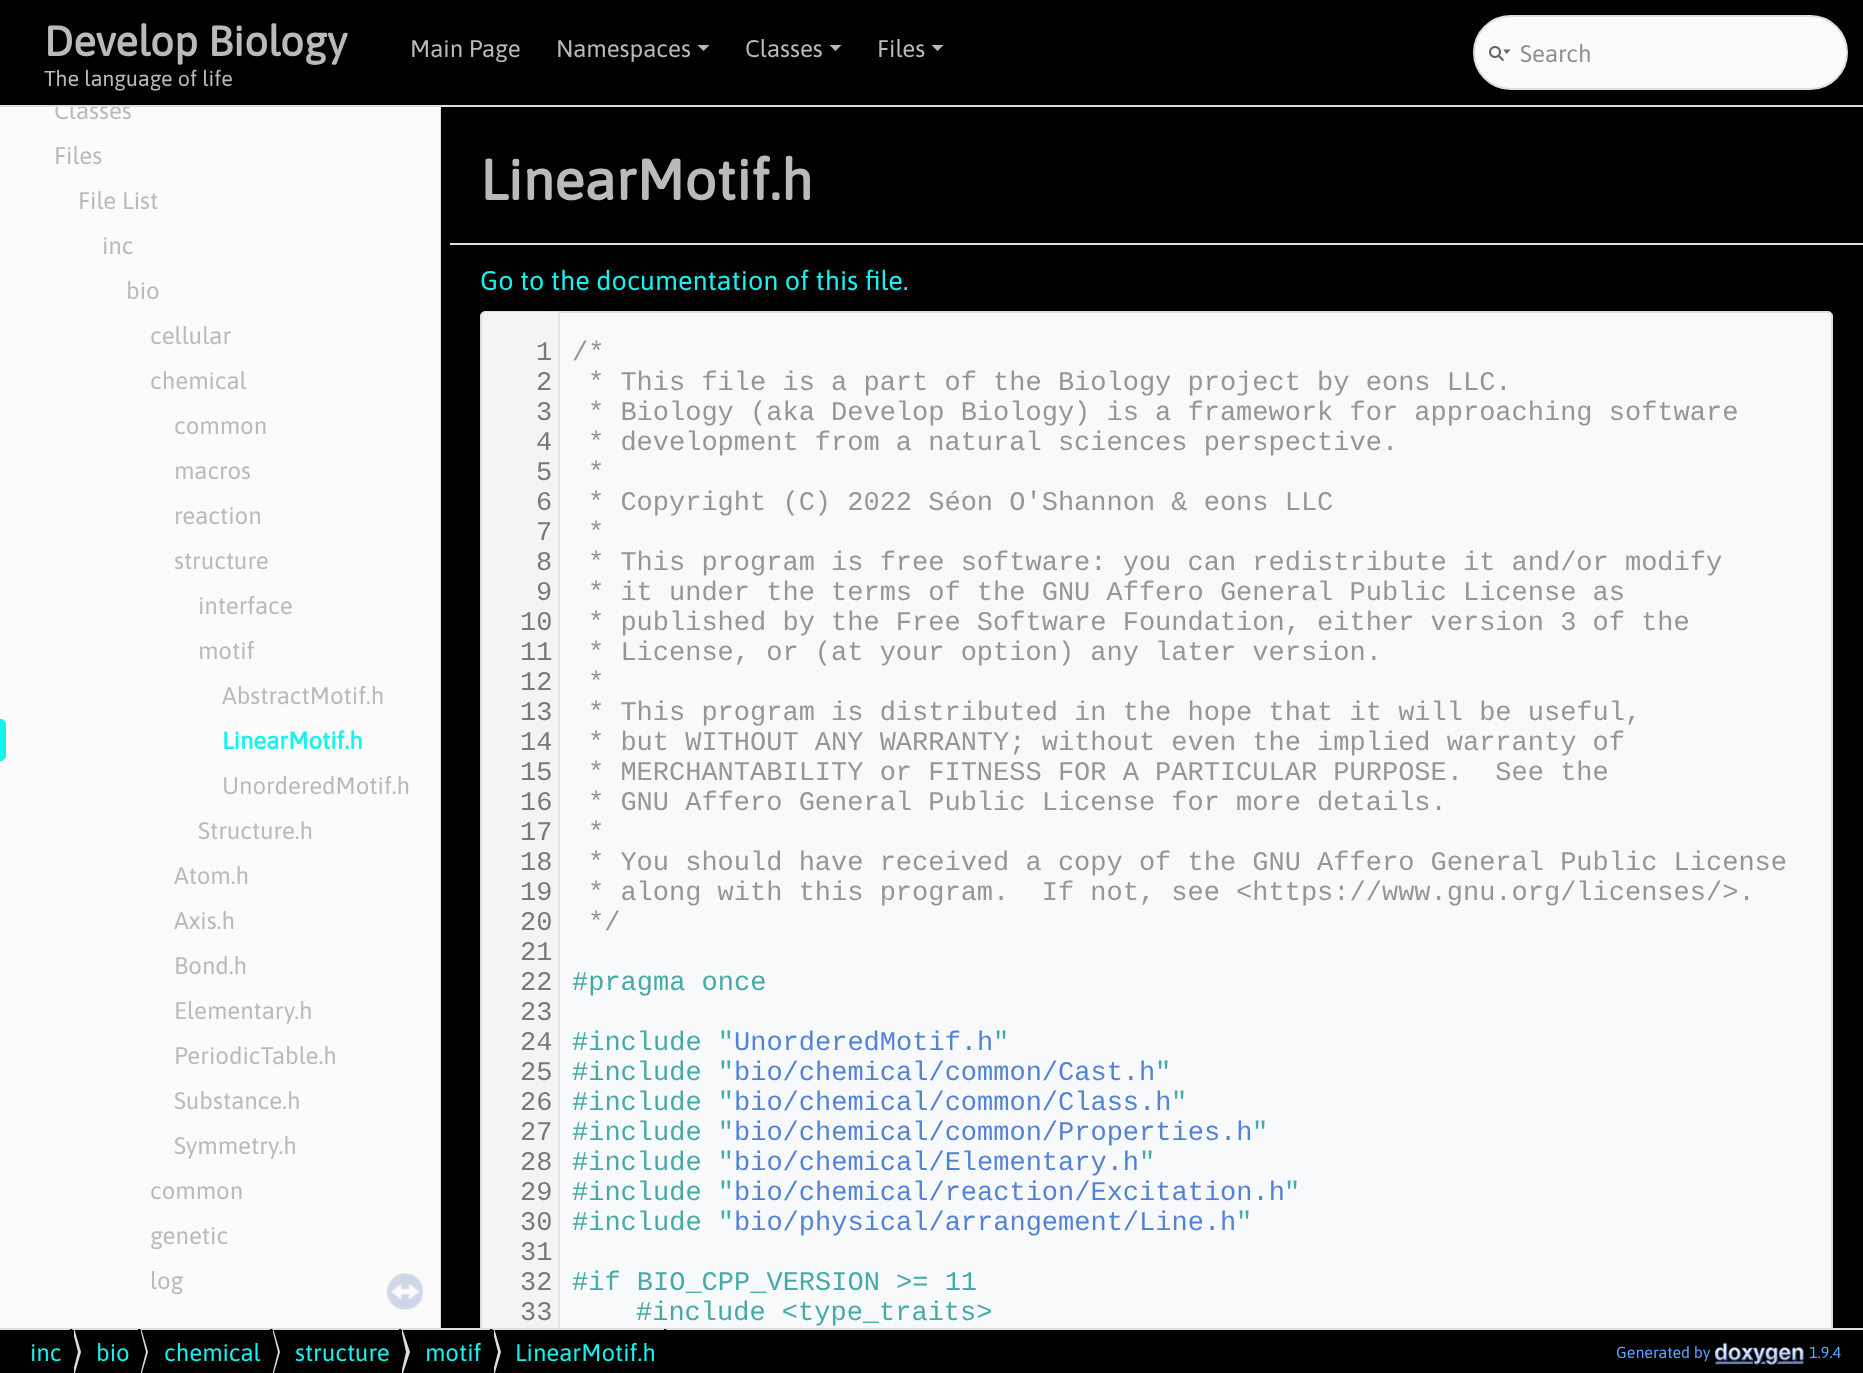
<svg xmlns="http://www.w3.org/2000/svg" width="1863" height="1373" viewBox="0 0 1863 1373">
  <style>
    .t1 { font: bold 42px Asap; fill: #bababa; }
    .t2 { font: 21.5px Asap; fill: #bababa; }
    .t3 { font: 24px Asap; fill: #bababa; }
    .t4 { font: 24px Asap; fill: #909090; }
    .t5 { font: bold 24px Asap; fill: #13f4ef; }
    .t6 { font: bold 56.75px Asap; fill: #bababa; }
    .t7 { font: 27px Asap; fill: #13f4ef; }
    .t8 { font: 27px Liberation Mono; fill: #797979; }
    .t9 { font: 27px Liberation Mono; fill: #969696; }
    .t10 { font: 27px Liberation Mono; fill: #46aaa5; }
    .t11 { font: 27px Liberation Mono; fill: #5383d6; }
    .t12 { font: 24px Asap; fill: #13f4ef; }
    .t13 { font: 16px Asap; fill: #5ca3ff; }
  </style>
  <defs>
    <clipPath id="clip1"><rect x="0" y="107" width="441" height="1221"/></clipPath>
    <clipPath id="clip2"><rect x="450" y="107" width="1413" height="1221"/></clipPath>
    <clipPath id="clip3"><rect x="0" y="1329" width="1863" height="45"/></clipPath>
  </defs>
  <rect width="100%" height="100%" fill="#000"/>
  <rect x="0" y="105" width="1863" height="2" fill="#dedede"/>
  <text x="44" y="56" class="t1">Develop Biology</text>
  <text x="44" y="86" class="t2">The language of life</text>
  <text x="410" y="57" class="t3">Main Page</text>
  <text x="556" y="57" class="t3">Namespaces</text>
  <path d="M697.5 45H709.5L703.5 51Z" fill="#bababa"/>
  <text x="745" y="57" class="t3">Classes</text>
  <path d="M829.5 45H841.5L835.5 51Z" fill="#bababa"/>
  <text x="877" y="57" class="t3">Files</text>
  <path d="M931.5 45H943.5L937.5 51Z" fill="#bababa"/>
  <rect x="1474" y="16" width="373" height="73" rx="36.5" fill="#fbfbfb" stroke="#dedede" stroke-width="2"/>
  <image x="1489" y="46" width="22" height="15" href="images/1.png"/>
  <text x="1520" y="62" class="t4">Search</text>
  <rect x="0" y="107" width="440" height="1221" fill="#fbfbfb"/>
  <g clip-path="url(#clip1)">
    <text x="54" y="119" class="t3">Classes</text>
  </g>
  <text x="54" y="164" class="t3">Files</text>
  <text x="78" y="209" class="t3">File List</text>
  <text x="102" y="254" class="t3">inc</text>
  <text x="126" y="299" class="t3">bio</text>
  <text x="150" y="344" class="t3">cellular</text>
  <text x="150" y="389" class="t3">chemical</text>
  <text x="174" y="434" class="t3">common</text>
  <text x="174" y="479" class="t3">macros</text>
  <text x="174" y="524" class="t3">reaction</text>
  <text x="174" y="569" class="t3">structure</text>
  <text x="198" y="614" class="t3">interface</text>
  <text x="198" y="659" class="t3">motif</text>
  <text x="222" y="704" class="t3">AbstractMotif.h</text>
  <path d="M0 719C3.5 719 6 721.5 6 725V755C6 758.5 3.5 761 0 761Z" fill="#13f4ef"/>
  <text x="222" y="749" class="t5">LinearMotif.h</text>
  <text x="222" y="794" class="t3">UnorderedMotif.h</text>
  <text x="198" y="839" class="t3">Structure.h</text>
  <text x="174" y="884" class="t3">Atom.h</text>
  <text x="174" y="929" class="t3">Axis.h</text>
  <text x="174" y="974" class="t3">Bond.h</text>
  <text x="174" y="1019" class="t3">Elementary.h</text>
  <text x="174" y="1064" class="t3">PeriodicTable.h</text>
  <text x="174" y="1109" class="t3">Substance.h</text>
  <text x="174" y="1154" class="t3">Symmetry.h</text>
  <text x="150" y="1199" class="t3">common</text>
  <text x="150" y="1244" class="t3">genetic</text>
  <text x="150" y="1289" class="t3">log</text>
  <image x="387" y="1273" width="36" height="37" href="images/2.png"/>
  <rect x="440" y="107" width="1" height="1221" fill="#dedede"/>
  <rect x="450" y="243" width="1413" height="2" fill="#dedede"/>
  <text x="480" y="200" class="t6">LinearMotif.h</text>
  <text x="480" y="290" class="t7">Go to the documentation of this file.</text>
  <path d="M486 311H1827C1830.5 311 1833 313.5 1833 317V1328H480V317C480 313.5 482.5 311 486 311Z" fill="#f8f9fa"/>
  <g clip-path="url(#clip2)">
    <rect x="481" y="312" width="1351" height="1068" rx="5" fill="none" stroke="#dedede" stroke-width="2"/>
    <path d="M487 312C484 312 482 314 482 317V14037C482 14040 484 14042 487 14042H560V312ZM512 338V368H558V338Z" fill="#e3e5e7" fill-rule="evenodd"/>
    <path d="M487 312C484 312 482 314 482 317V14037C482 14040 484 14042 487 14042H558V368H512V338H558V312Z" fill="#f4f4f5"/>
  </g>
  <rect x="512" y="338" width="46" height="30" fill="#f4f4f5"/>
  <text x="536" y="360" class="t8">1</text>
  <text x="572" y="360" class="t9">/*</text>
  <text x="536" y="390" class="t8">2</text>
  <text x="588" y="390" class="t9">* This file is a part of the Biology project by eons LLC.</text>
  <text x="536" y="420" class="t8">3</text>
  <text x="588" y="420" class="t9">* Biology (aka Develop Biology) is a framework for approaching software</text>
  <text x="536" y="450" class="t8">4</text>
  <text x="588" y="450" class="t9">* development from a natural sciences perspective.</text>
  <text x="536" y="480" class="t8">5</text>
  <text x="588" y="480" class="t9">*</text>
  <text x="536" y="510" class="t8">6</text>
  <text x="588" y="510" class="t9">* Copyright (C) 2022 Séon O'Shannon &amp; eons LLC</text>
  <text x="536" y="540" class="t8">7</text>
  <text x="588" y="540" class="t9">*</text>
  <text x="536" y="570" class="t8">8</text>
  <text x="588" y="570" class="t9">* This program is free software: you can redistribute it and/or modify</text>
  <text x="536" y="600" class="t8">9</text>
  <text x="588" y="600" class="t9">* it under the terms of the GNU Affero General Public License as</text>
  <text x="520" y="630" class="t8">10</text>
  <text x="588" y="630" class="t9">* published by the Free Software Foundation, either version 3 of the</text>
  <text x="520" y="660" class="t8">11</text>
  <text x="588" y="660" class="t9">* License, or (at your option) any later version.</text>
  <text x="520" y="690" class="t8">12</text>
  <text x="588" y="690" class="t9">*</text>
  <text x="520" y="720" class="t8">13</text>
  <text x="588" y="720" class="t9">* This program is distributed in the hope that it will be useful,</text>
  <text x="520" y="750" class="t8">14</text>
  <text x="588" y="750" class="t9">* but WITHOUT ANY WARRANTY; without even the implied warranty of</text>
  <text x="520" y="780" class="t8">15</text>
  <text x="588" y="780" class="t9" xml:space="preserve">* MERCHANTABILITY or FITNESS FOR A PARTICULAR PURPOSE.  See the</text>
  <text x="520" y="810" class="t8">16</text>
  <text x="588" y="810" class="t9">* GNU Affero General Public License for more details.</text>
  <text x="520" y="840" class="t8">17</text>
  <text x="588" y="840" class="t9">*</text>
  <text x="520" y="870" class="t8">18</text>
  <text x="588" y="870" class="t9">* You should have received a copy of the GNU Affero General Public License</text>
  <text x="520" y="900" class="t8">19</text>
  <text x="588" y="900" class="t9" xml:space="preserve">* along with this program.  If not, see &lt;https://www.gnu.org/licenses/&gt;.</text>
  <text x="520" y="930" class="t8">20</text>
  <text x="588" y="930" class="t9">*/</text>
  <text x="520" y="960" class="t8">21</text>
  <text x="520" y="990" class="t8">22</text>
  <text x="572" y="990" class="t10">#pragma once</text>
  <text x="520" y="1020" class="t8">23</text>
  <text x="520" y="1050" class="t8">24</text>
  <text x="572" y="1050" class="t10">#include "</text>
  <text x="734" y="1050" class="t11">UnorderedMotif.h</text>
  <text x="993" y="1050" class="t10">"</text>
  <text x="520" y="1080" class="t8">25</text>
  <text x="572" y="1080" class="t10">#include "</text>
  <text x="734" y="1080" class="t11">bio/chemical/common/Cast.h</text>
  <text x="1155" y="1080" class="t10">"</text>
  <text x="520" y="1110" class="t8">26</text>
  <text x="572" y="1110" class="t10">#include "</text>
  <text x="734" y="1110" class="t11">bio/chemical/common/Class.h</text>
  <text x="1171" y="1110" class="t10">"</text>
  <text x="520" y="1140" class="t8">27</text>
  <text x="572" y="1140" class="t10">#include "</text>
  <text x="734" y="1140" class="t11">bio/chemical/common/Properties.h</text>
  <text x="1252" y="1140" class="t10">"</text>
  <text x="520" y="1170" class="t8">28</text>
  <text x="572" y="1170" class="t10">#include "</text>
  <text x="734" y="1170" class="t11">bio/chemical/Elementary.h</text>
  <text x="1139" y="1170" class="t10">"</text>
  <text x="520" y="1200" class="t8">29</text>
  <text x="572" y="1200" class="t10">#include "</text>
  <text x="734" y="1200" class="t11">bio/chemical/reaction/Excitation.h</text>
  <text x="1284" y="1200" class="t10">"</text>
  <text x="520" y="1230" class="t8">30</text>
  <text x="572" y="1230" class="t10">#include "</text>
  <text x="734" y="1230" class="t11">bio/physical/arrangement/Line.h</text>
  <text x="1236" y="1230" class="t10">"</text>
  <text x="520" y="1260" class="t8">31</text>
  <text x="520" y="1290" class="t8">32</text>
  <text x="572" y="1290" class="t10">#if BIO_CPP_VERSION &gt;= 11</text>
  <text x="520" y="1320" class="t8">33</text>
  <text x="636" y="1320" class="t10">#include &lt;type_traits&gt;</text>
  <rect x="0" y="1328" width="1863" height="2" fill="#dedede"/>
  <text x="30" y="1361" class="t12">inc</text>
  <path d="M74 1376V1328L81 1352Z" fill="#dedede"/>
  <g clip-path="url(#clip3)">
    <path d="M70 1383V1320L78 1352Z" fill="#000"/>
  </g>
  <text x="96" y="1361" class="t12">bio</text>
  <path d="M141 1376V1328L148 1352Z" fill="#dedede"/>
  <g clip-path="url(#clip3)">
    <path d="M138 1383V1320L146 1352Z" fill="#000"/>
  </g>
  <text x="164" y="1361" class="t12">chemical</text>
  <path d="M273 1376V1328L280 1352Z" fill="#dedede"/>
  <g clip-path="url(#clip3)">
    <path d="M270 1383V1320L278 1352Z" fill="#000"/>
  </g>
  <text x="295" y="1361" class="t12">structure</text>
  <path d="M402 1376V1328L410 1352Z" fill="#dedede"/>
  <g clip-path="url(#clip3)">
    <path d="M399 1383V1320L406 1352Z" fill="#000"/>
  </g>
  <text x="425" y="1361" class="t12">motif</text>
  <path d="M494 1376V1328L501 1352Z" fill="#dedede"/>
  <g clip-path="url(#clip3)">
    <path d="M490 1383V1320L498 1352Z" fill="#000"/>
  </g>
  <text x="515" y="1361" class="t12">LinearMotif.h</text>
  <g clip-path="url(#clip3)">
    <path d="M664 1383V1320L672 1352Z" fill="#000"/>
  </g>
  <text x="1616" y="1358" class="t13">Generated by</text>
  <image x="1715" y="1342" width="90" height="24" href="images/3.png"/>
  <text x="1809" y="1358" class="t13">1.9.4</text>
</svg>
